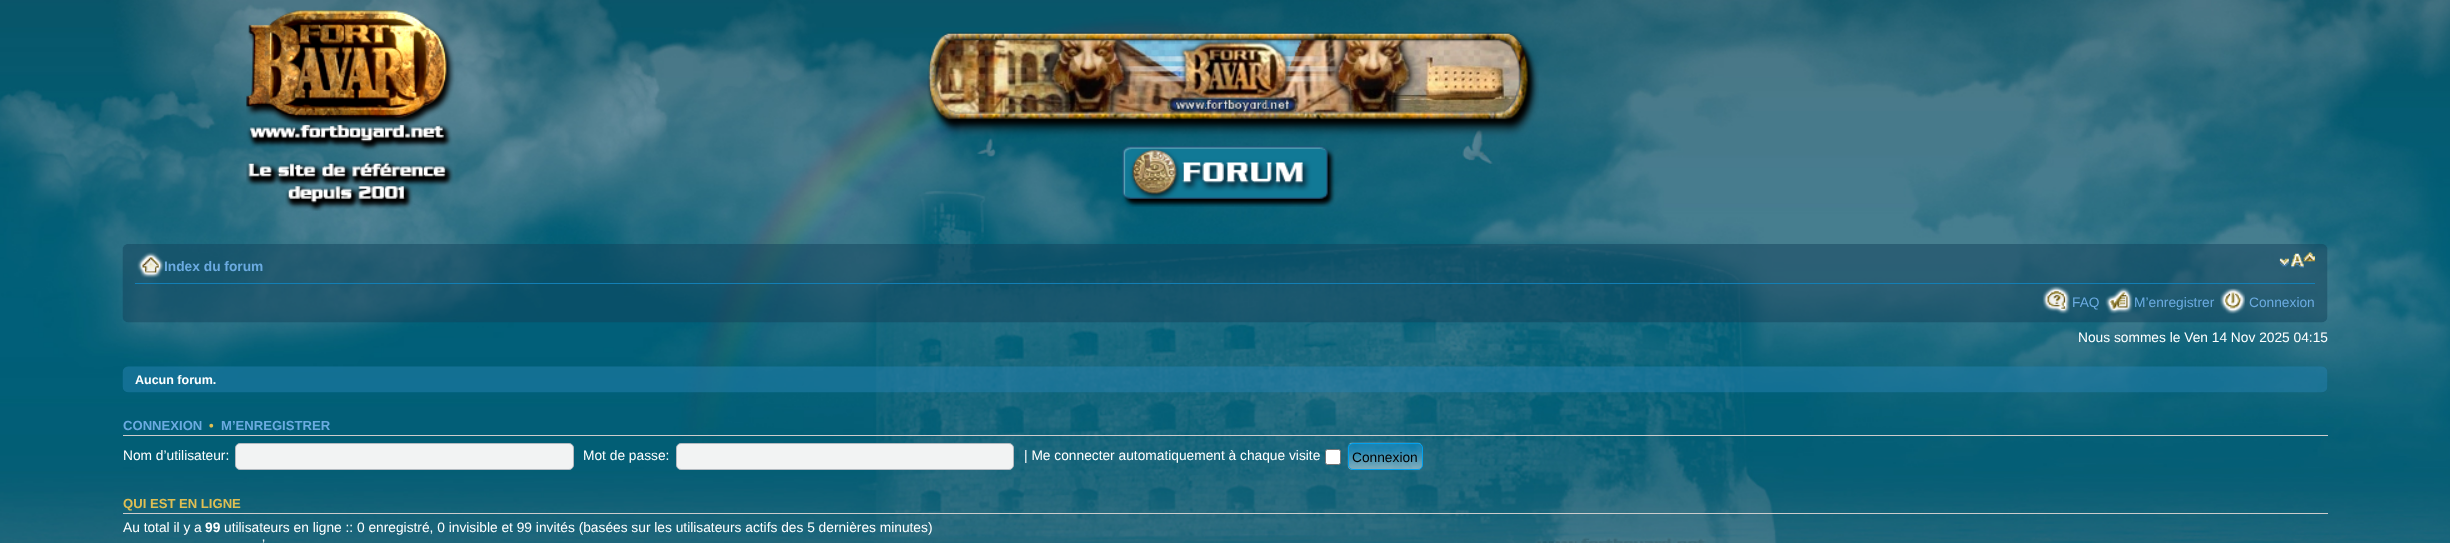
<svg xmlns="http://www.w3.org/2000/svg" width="2450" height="543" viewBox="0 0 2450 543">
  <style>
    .t1 { font: bold 13.75px Liberation Sans; fill: #6babe1; }
    .t2 { font: 13.75px Liberation Sans; fill: #6babe1; }
    .t3 { font: 13.75px Liberation Sans; fill: #fff; }
    .t4 { font: bold 12.5px Liberation Sans; fill: #fff; }
    .t5 { font: bold 13.1px Liberation Sans; fill: #6babe1; }
    .t6 { font: bold 13.1px Liberation Sans; fill: #dfbf53; }
    .t7 { font: 13.75px Liberation Sans; fill: #000; }
    .t8 { font: bold 13.75px Liberation Sans; fill: #fff; }
  </style>
  <rect width="100%" height="100%" fill="#fff"/>
  <image x="0" y="0" width="2450" height="543" href="images/1.png"/>
  <image x="246" y="10" width="209" height="201" href="images/2.png"/>
  <image x="927" y="32" width="612" height="175" href="images/3.png"/>
  <image x="122" y="244" width="2206" height="79" href="images/4.png"/>
  <rect x="135" y="283" width="2180" height="1" fill="#137fb6"/>
  <image x="137" y="252" width="27" height="26" href="images/5.png"/>
  <text x="164" y="271" class="t1">Index du forum</text>
  <image x="2279" y="252" width="36" height="16" href="images/6.png"/>
  <image x="2042" y="286" width="28" height="28" href="images/7.png"/>
  <text x="2072" y="307" class="t2">FAQ</text>
  <image x="2105" y="287" width="28" height="27" href="images/8.png"/>
  <text x="2134" y="307" class="t2">M’enregistrer</text>
  <image x="2220" y="288" width="25" height="26" href="images/9.png"/>
  <text x="2249" y="307" class="t2">Connexion</text>
  <text x="2078" y="342" class="t3">Nous sommes le Ven 14 Nov 2025 04:15</text>
  <image x="122" y="366" width="2206" height="27" href="images/10.png"/>
  <text x="135" y="384" class="t4">Aucun forum.</text>
  <rect x="123" y="435" width="2205" height="1" fill="#ccc"/>
  <text x="123" y="430" class="t5">CONNEXION</text>
  <text x="209" y="430" class="t6">•</text>
  <text x="221" y="430" class="t5">M’ENREGISTRER</text>
  <text x="123" y="460" class="t3">Nom d’utilisateur:</text>
  <rect x="235.5" y="443.5" width="338" height="26" rx="4.5" fill="#f2f3f3" stroke="#b4bac0"/>
  <text x="583" y="460" class="t3">Mot de passe:</text>
  <rect x="676.5" y="443.5" width="337" height="26" rx="4.5" fill="#f2f3f3" stroke="#b4bac0"/>
  <text x="1024" y="460" class="t3">| Me connecter automatiquement à chaque visite</text>
  <rect x="1325.5" y="449.5" width="15" height="15" rx="2" fill="#fff" stroke="#767676"/>
  <image x="1347" y="442" width="76" height="28" href="images/11.png"/>
  <rect x="1348.5" y="443.5" width="74" height="26" rx="4.5" fill="none" stroke="#02a0ee"/>
  <text x="1352" y="462" class="t7">Connexion</text>
  <rect x="123" y="513" width="2205" height="1" fill="#ccc"/>
  <text x="123" y="508" class="t6">QUI EST EN LIGNE</text>
  <text x="123" y="532" class="t3">Au total il y a</text>
  <text x="205" y="532" class="t8">99</text>
  <text x="224" y="532" class="t3">utilisateurs en ligne :: 0 enregistré, 0 invisible et 99 invités (basées sur les utilisateurs actifs des 5 dernières minutes)</text>
  <text x="262" y="549" class="t3">’</text>
</svg>
